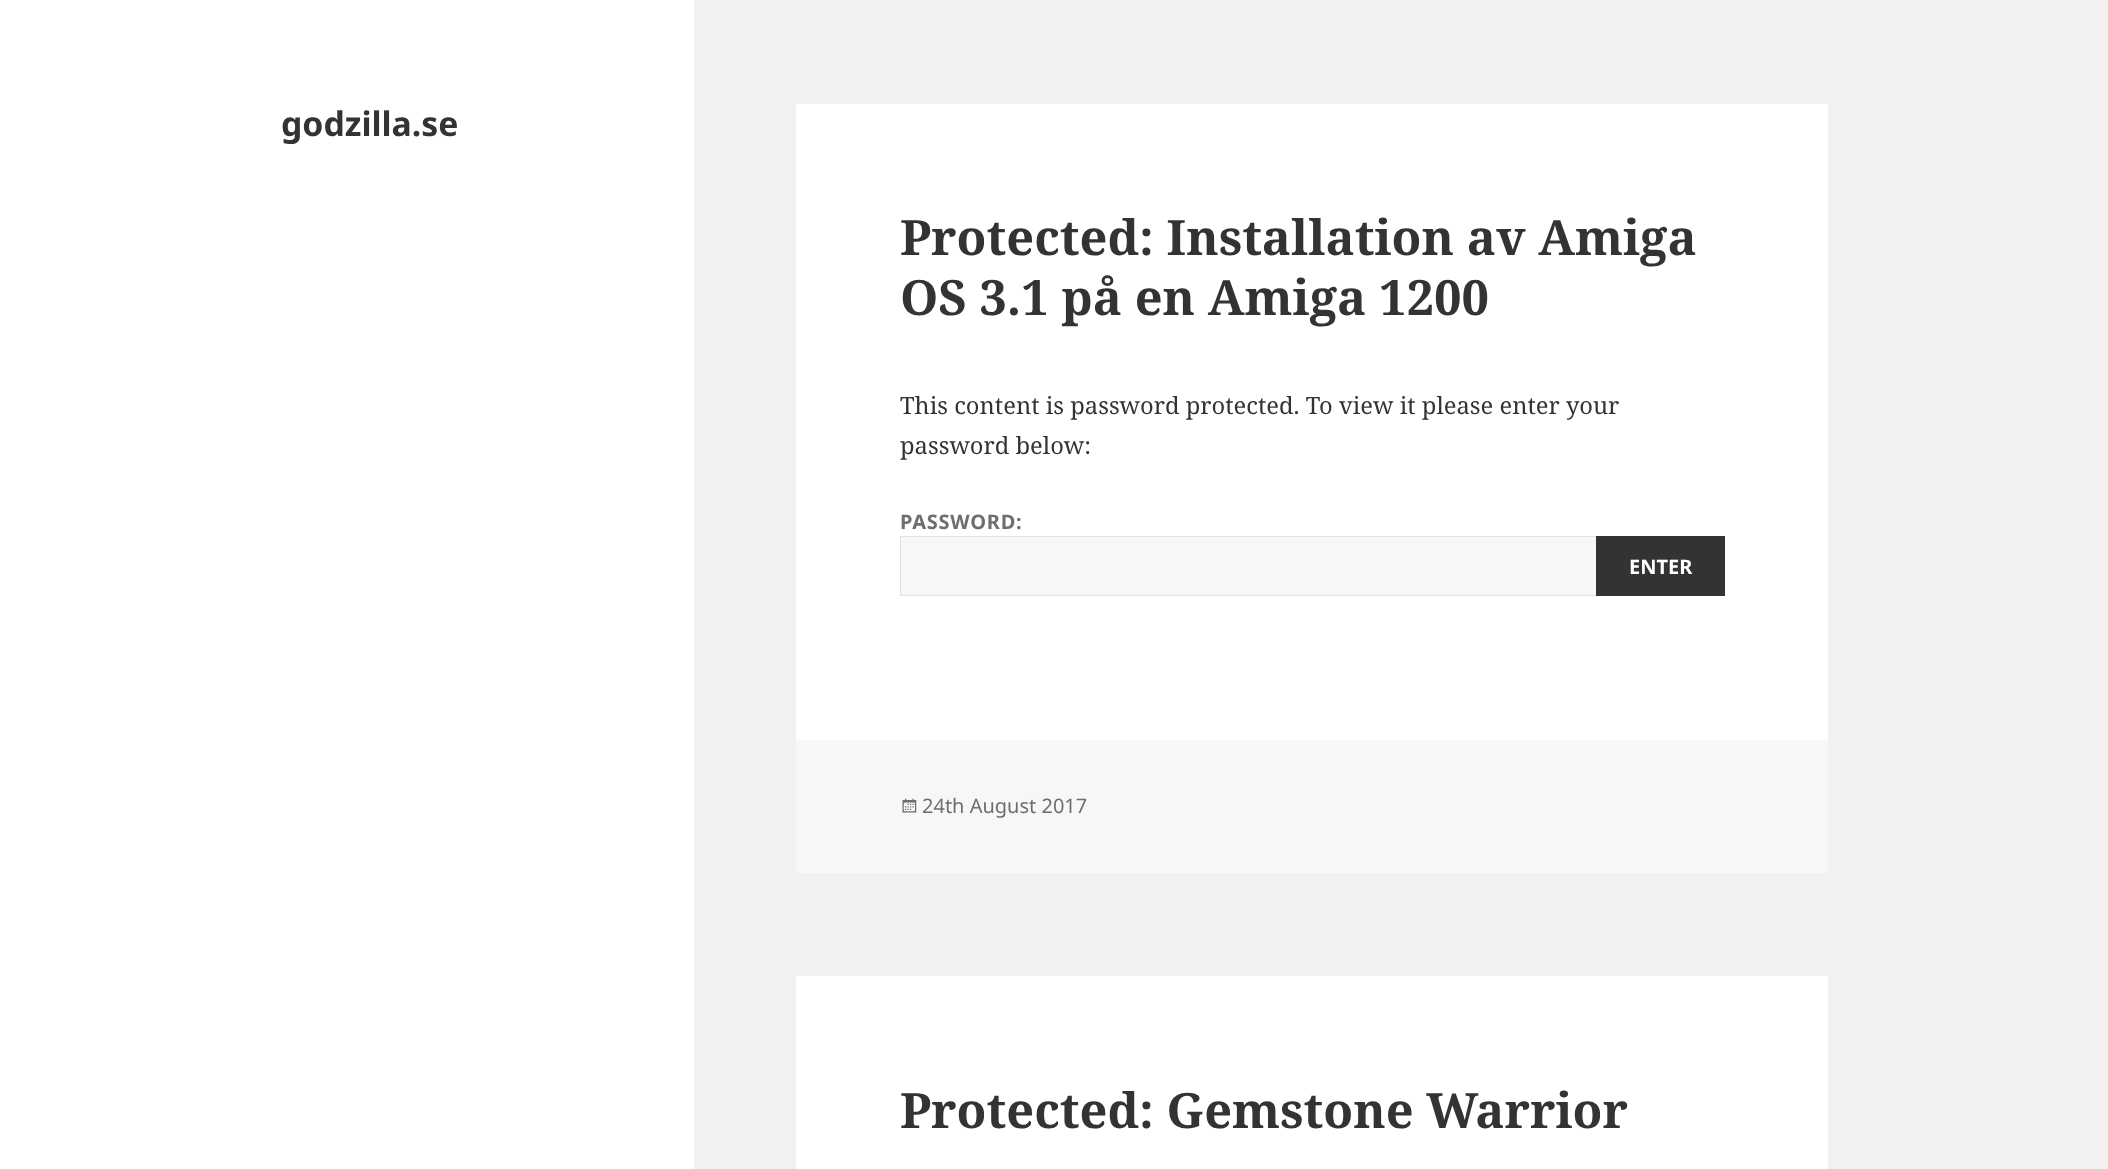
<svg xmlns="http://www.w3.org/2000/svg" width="2108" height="1169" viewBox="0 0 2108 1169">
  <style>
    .t1 { font: bold 33.75px Noto Sans; fill: #333; }
    .t2 { font: bold 48.75px Noto Serif; fill: #333; }
    .t3 { font: 23.75px Noto Serif; fill: #333; }
    .t4 { font: bold 20px Noto Sans; letter-spacing: 0.75px; fill: #6e6e6e; }
    .t5 { font: bold 20px Noto Sans; fill: #fff; }
    .t6 { font: 20px Noto Sans; fill: #6e6e6e; }
  </style>
  <rect width="100%" height="100%" fill="#f1f1f1"/>
  <rect x="0" y="0" width="694" height="1169" fill="#fff"/>
  <text x="281" y="136" class="t1">godzilla.se</text>
  <rect x="796" y="104" width="1032" height="636" fill="#fff"/>
  <text x="900" y="255" class="t2">Protected: Installation av Amiga</text>
  <text x="900" y="315" class="t2">OS 3.1 på en Amiga 1200</text>
  <text x="900" y="414" class="t3">This content is password protected. To view it please enter your</text>
  <text x="900" y="454" class="t3">password below:</text>
  <text x="900" y="529" class="t4">PASSWORD:</text>
  <rect x="901" y="537" width="695" height="58" fill="#f7f7f7"/>
  <rect x="900.5" y="536.5" width="824" height="59" fill="none" stroke="#e3e3e3"/>
  <rect x="1596" y="536" width="129" height="60" fill="#333"/>
  <text x="1629" y="574" class="t5">ENTER</text>
  <rect x="796" y="740" width="1032" height="133" fill="#f7f7f7"/>
  <image x="902" y="798" width="15" height="15" href="images/1.png"/>
  <text x="922" y="813" class="t6">24th August 2017</text>
  <rect x="796" y="976" width="1032" height="193" fill="#fff"/>
  <text x="900" y="1128" class="t2">Protected: Gemstone Warrior</text>
</svg>
